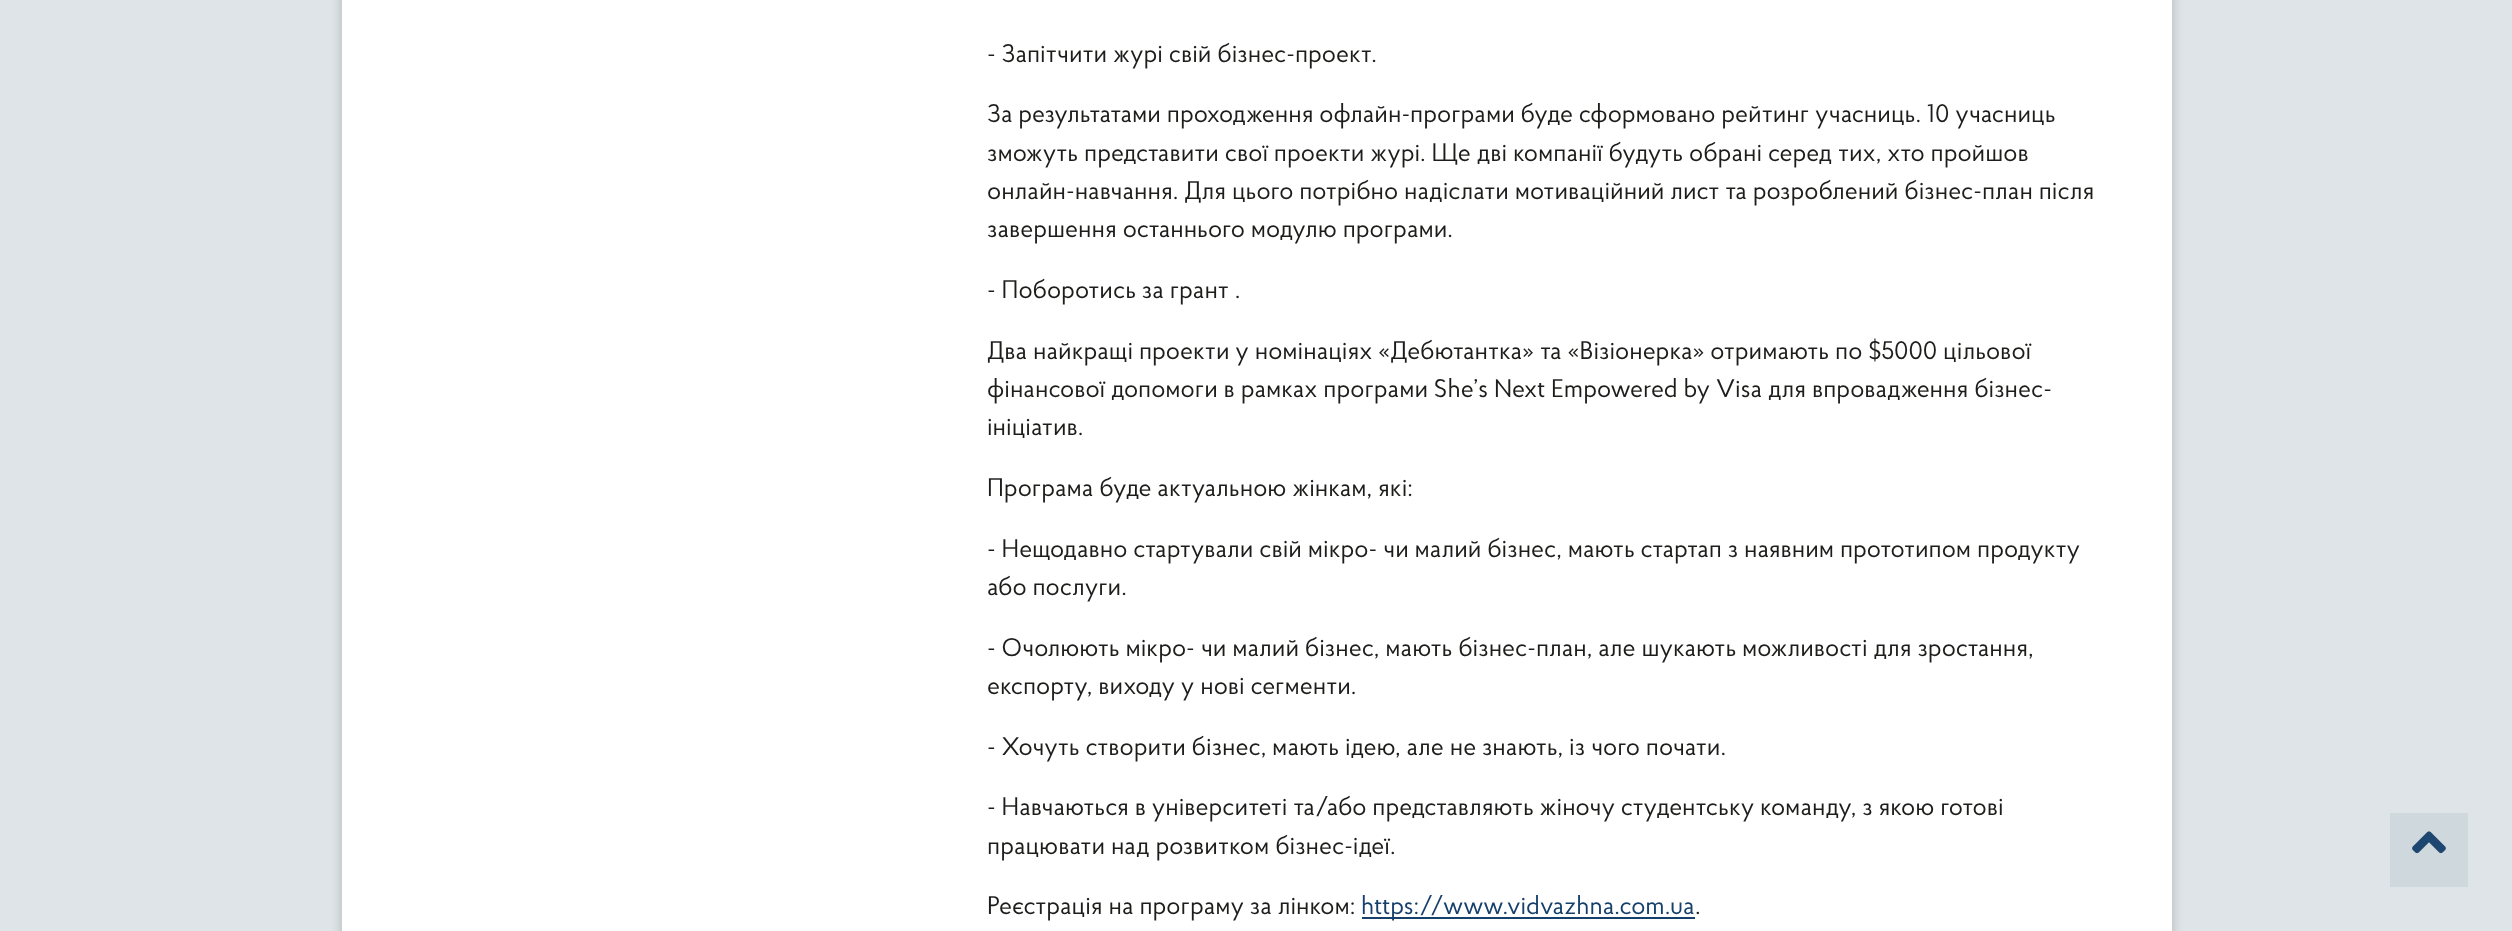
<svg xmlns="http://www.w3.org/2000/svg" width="2512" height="931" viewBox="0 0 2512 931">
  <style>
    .t1 { font: 25.5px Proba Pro; fill: #1d1d1b; }
    .t2 { font: 25.5px Proba Pro; fill: #16406c; }
  </style>
  <rect width="100%" height="100%" fill="#dee4e7"/>
  <rect x="342" y="-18" width="1830" height="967" fill="#00000033" filter="blur(6px)"/>
  <rect x="342" y="0" width="1830" height="931" fill="#fff"/>
  <text x="987" y="62" class="t1">- Запітчити журі свій бізнес-проект.</text>
  <text x="987" y="122" class="t1">За результатами проходження офлайн-програми буде сформовано рейтинг учасниць. 10 учасниць</text>
  <text x="987" y="161" class="t1">зможуть представити свої проекти журі. Ще дві компанії будуть обрані серед тих, хто пройшов</text>
  <text x="987" y="199" class="t1">онлайн-навчання. Для цього потрібно надіслати мотиваційний лист та розроблений бізнес-план після</text>
  <text x="987" y="237" class="t1">завершення останнього модулю програми.</text>
  <text x="987" y="298" class="t1">- Поборотись за грант .</text>
  <text x="987" y="359" class="t1">Два найкращі проекти у номінаціях «Дебютантка» та «Візіонерка» отримають по $5000 цільової</text>
  <text x="987" y="397" class="t1">фінансової допомоги в рамках програми She’s Next Empowered by Visa для впровадження бізнес-</text>
  <text x="987" y="435" class="t1">ініціатив.</text>
  <text x="987" y="496" class="t1">Програма буде актуальною жінкам, які:</text>
  <text x="987" y="557" class="t1">- Нещодавно стартували свій мікро- чи малий бізнес, мають стартап з наявним прототипом продукту</text>
  <text x="987" y="595" class="t1">або послуги.</text>
  <text x="987" y="656" class="t1">- Очолюють мікро- чи малий бізнес, мають бізнес-план, але шукають можливості для зростання,</text>
  <text x="987" y="694" class="t1">експорту, виходу у нові сегменти.</text>
  <text x="987" y="755" class="t1">- Хочуть створити бізнес, мають ідею, але не знають, із чого почати.</text>
  <text x="987" y="815" class="t1">- Навчаються в університеті та/або представляють жіночу студентську команду, з якою готові</text>
  <text x="987" y="854" class="t1">працювати над розвитком бізнес-ідеї.</text>
  <text x="987" y="914" class="t1">Реєстрація на програму за лінком:</text>
  <rect x="1362" y="917" width="333" height="2" fill="#16406c"/>
  <text x="1361" y="914" class="t2">https://www.vidvazhna.com.ua</text>
  <text x="1695" y="914" class="t1">.</text>
  <rect x="2390" y="813" width="78" height="74" fill="#cfd8dc"/>
  <image x="2412" y="831" width="34" height="23" href="images/1.png"/>
</svg>
